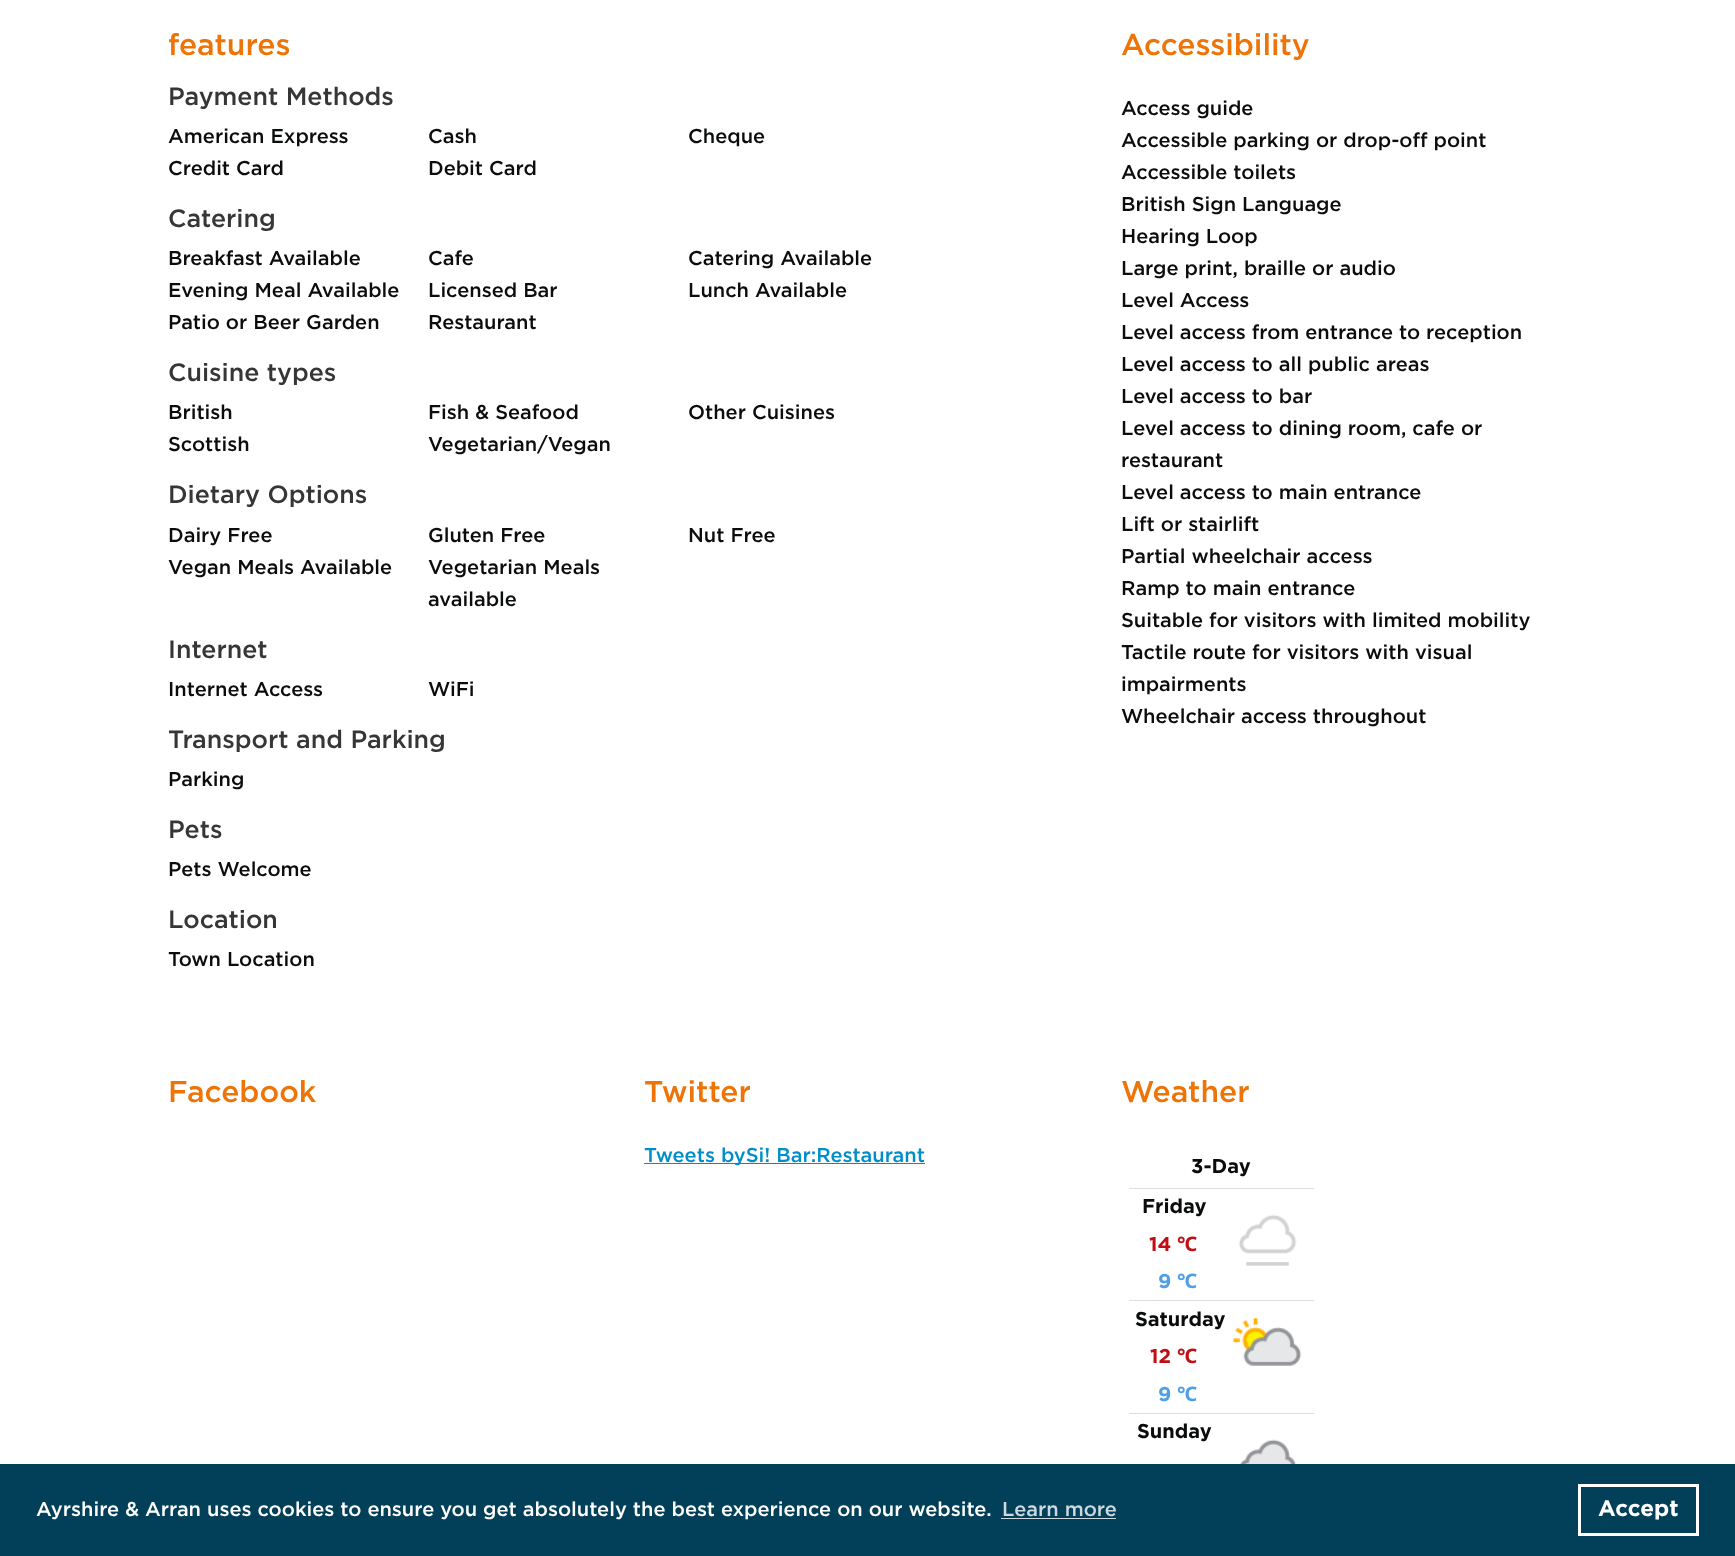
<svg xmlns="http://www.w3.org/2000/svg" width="1735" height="1556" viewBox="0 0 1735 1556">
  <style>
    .t1 { font: 500 30px Gotham; fill: #ee7408; }
    .t2 { font: 500 25px Gotham; fill: #363636; }
    .t3 { font: 500 20px Gotham; fill: #0b0c0c; }
    .t4 { font: 500 20px Gotham; fill: #008eca; }
    .t5 { font: bold 20px Gotham; fill: #0b0c0c; }
    .t6 { font: bold 20px Gotham; fill: #bf0f14; }
    .t7 { font: bold 20px Noto Sans; fill: #bf0f14; }
    .t8 { font: bold 20px Gotham; fill: #4f9fe8; }
    .t9 { font: bold 20px Noto Sans; fill: #4f9fe8; }
    .t10 { font: 500 20px Gotham; fill: #fff; }
    .t11 { font: 500 20px Gotham; fill: #ccd9de; }
    .t12 { font: bold 22.5px Gotham; fill: #fff; }
  </style>
  <rect width="100%" height="100%" fill="#fff"/>
  <text x="168" y="55" class="t1">features</text>
  <text x="168" y="105" class="t2">Payment Methods</text>
  <text x="168" y="143" class="t3">American Express</text>
  <text x="428" y="143" class="t3">Cash</text>
  <text x="688" y="143" class="t3">Cheque</text>
  <text x="168" y="175" class="t3">Credit Card</text>
  <text x="428" y="175" class="t3">Debit Card</text>
  <text x="168" y="227" class="t2">Catering</text>
  <text x="168" y="265" class="t3">Breakfast Available</text>
  <text x="428" y="265" class="t3">Cafe</text>
  <text x="688" y="265" class="t3">Catering Available</text>
  <text x="168" y="297" class="t3">Evening Meal Available</text>
  <text x="428" y="297" class="t3">Licensed Bar</text>
  <text x="688" y="297" class="t3">Lunch Available</text>
  <text x="168" y="329" class="t3">Patio or Beer Garden</text>
  <text x="428" y="329" class="t3">Restaurant</text>
  <text x="168" y="381" class="t2">Cuisine types</text>
  <text x="168" y="419" class="t3">British</text>
  <text x="428" y="419" class="t3">Fish &amp; Seafood</text>
  <text x="688" y="419" class="t3">Other Cuisines</text>
  <text x="168" y="451" class="t3">Scottish</text>
  <text x="428" y="451" class="t3">Vegetarian/Vegan</text>
  <text x="168" y="503" class="t2">Dietary Options</text>
  <text x="168" y="542" class="t3">Dairy Free</text>
  <text x="428" y="542" class="t3">Gluten Free</text>
  <text x="688" y="542" class="t3">Nut Free</text>
  <text x="168" y="574" class="t3">Vegan Meals Available</text>
  <text x="428" y="574" class="t3">Vegetarian Meals</text>
  <text x="428" y="606" class="t3">available</text>
  <text x="168" y="658" class="t2">Internet</text>
  <text x="168" y="696" class="t3">Internet Access</text>
  <text x="428" y="696" class="t3">WiFi</text>
  <text x="168" y="748" class="t2">Transport and Parking</text>
  <text x="168" y="786" class="t3">Parking</text>
  <text x="168" y="838" class="t2">Pets</text>
  <text x="168" y="876" class="t3">Pets Welcome</text>
  <text x="168" y="928" class="t2">Location</text>
  <text x="168" y="966" class="t3">Town Location</text>
  <text x="1121" y="55" class="t1">Accessibility</text>
  <text x="1121" y="115" class="t3">Access guide</text>
  <text x="1121" y="147" class="t3">Accessible parking or drop-off point</text>
  <text x="1121" y="179" class="t3">Accessible toilets</text>
  <text x="1121" y="211" class="t3">British Sign Language</text>
  <text x="1121" y="243" class="t3">Hearing Loop</text>
  <text x="1121" y="275" class="t3">Large print, braille or audio</text>
  <text x="1121" y="307" class="t3">Level Access</text>
  <text x="1121" y="339" class="t3">Level access from entrance to reception</text>
  <text x="1121" y="371" class="t3">Level access to all public areas</text>
  <text x="1121" y="403" class="t3">Level access to bar</text>
  <text x="1121" y="435" class="t3">Level access to dining room, cafe or</text>
  <text x="1121" y="467" class="t3">restaurant</text>
  <text x="1121" y="499" class="t3">Level access to main entrance</text>
  <text x="1121" y="531" class="t3">Lift or stairlift</text>
  <text x="1121" y="563" class="t3">Partial wheelchair access</text>
  <text x="1121" y="595" class="t3">Ramp to main entrance</text>
  <text x="1121" y="627" class="t3">Suitable for visitors with limited mobility</text>
  <text x="1121" y="659" class="t3">Tactile route for visitors with visual</text>
  <text x="1121" y="691" class="t3">impairments</text>
  <text x="1121" y="723" class="t3">Wheelchair access throughout</text>
  <text x="168" y="1102" class="t1">Facebook</text>
  <text x="644" y="1102" class="t1">Twitter</text>
  <rect x="644" y="1163" width="281" height="1" fill="#008eca"/>
  <text x="644" y="1162" class="t4">Tweets bySi! Bar:Restaurant</text>
  <text x="1121" y="1102" class="t1">Weather</text>
  <text x="1191" y="1173" class="t5">3-Day</text>
  <rect x="1129" y="1188" width="185" height="1" fill="#ddd"/>
  <text x="1142" y="1213" class="t5">Friday</text>
  <text x="1149" y="1251" class="t6">14</text>
  <text x="1177" y="1251" class="t7">℃</text>
  <image x="1238" y="1214" width="59" height="52" href="images/1.png"/>
  <text x="1158" y="1288" class="t8">9</text>
  <text x="1177" y="1288" class="t9">℃</text>
  <rect x="1129" y="1300" width="185" height="1" fill="#ddd"/>
  <text x="1135" y="1326" class="t5">Saturday</text>
  <image x="1232" y="1318" width="70" height="48" href="images/2.png"/>
  <text x="1150" y="1363" class="t6">12</text>
  <text x="1177" y="1363" class="t7">℃</text>
  <text x="1158" y="1401" class="t8">9</text>
  <text x="1177" y="1401" class="t9">℃</text>
  <rect x="1129" y="1413" width="185" height="1" fill="#ddd"/>
  <text x="1137" y="1438" class="t5">Sunday</text>
  <image x="1240" y="1439" width="57" height="25" href="images/3.png"/>
  <rect x="0" y="1464" width="1735" height="92" fill="#023f58"/>
  <text x="36" y="1516" class="t10">Ayrshire &amp; Arran uses cookies to ensure you get absolutely the best experience on our website.</text>
  <text x="1002" y="1516" class="t11">Learn more</text>
  <rect x="1001" y="1518" width="115" height="1" fill="#ccd9de"/>
  <rect x="1579.5" y="1485.5" width="118" height="49" fill="none" stroke="#fff" stroke-width="3"/>
  <text x="1598" y="1516" class="t12">Accept</text>
</svg>
